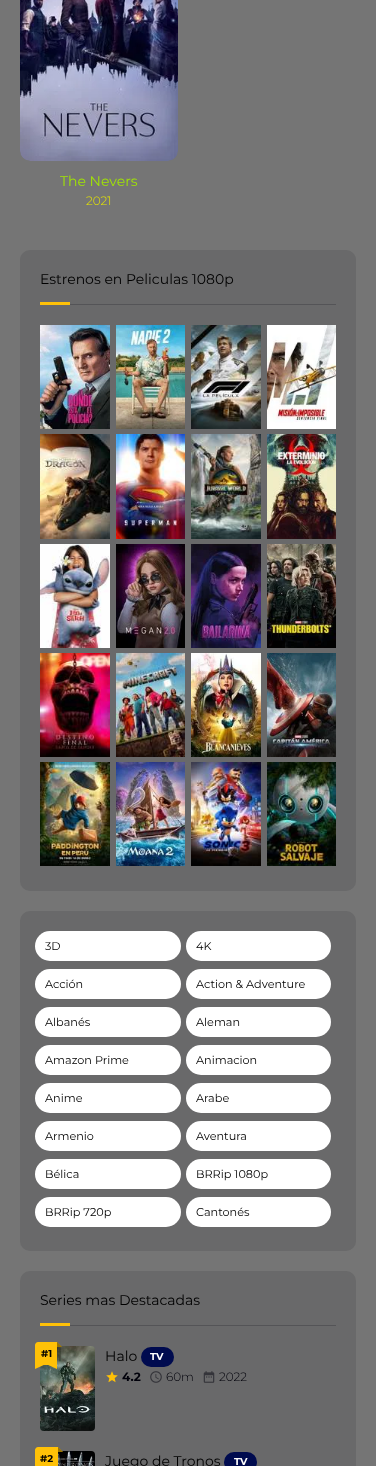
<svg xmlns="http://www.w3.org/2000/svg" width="376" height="1466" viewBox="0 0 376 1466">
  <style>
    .t1 { font: 14px Montserrat; fill: #a1e404; }
    .t2 { font: 300 12px Montserrat; fill: #e6e600; }
    .t3 { font: 14px Montserrat; fill: #000; }
    .t4 { font: 11.25px Montserrat; fill: #000; }
    .t5 { font: bold 10px Montserrat; fill: #000; }
    .t6 { font: bold 10px Montserrat; fill: #fff; }
    .t7 { font: bold 12px Montserrat; fill: #00000a; }
    .t8 { font: 300 12px Montserrat; fill: #00000a; }
  </style>
  <rect width="100%" height="100%" fill="#757575"/>
  <image x="20" y="0" width="158" height="161" href="images/1.png"/>
  <text x="60" y="186" class="t1">The Nevers</text>
  <text x="86" y="205" class="t2">2021</text>
  <rect x="20" y="250" width="336" height="641" rx="10" fill="#69696a"/>
  <text x="40" y="284" class="t3">Estrenos en Peliculas 1080p</text>
  <rect x="40" y="302" width="30" height="3" fill="#ffc107"/>
  <rect x="70" y="304" width="266" height="1" fill="#545457"/>
  <image x="40" y="325" width="70" height="104" href="images/2.png"/>
  <image x="116" y="325" width="69" height="104" href="images/3.png"/>
  <image x="191" y="325" width="70" height="104" href="images/4.png"/>
  <image x="267" y="325" width="69" height="104" href="images/5.png"/>
  <image x="40" y="434" width="70" height="105" href="images/6.png"/>
  <image x="116" y="434" width="69" height="105" href="images/7.png"/>
  <image x="191" y="434" width="70" height="105" href="images/8.png"/>
  <image x="267" y="434" width="69" height="105" href="images/9.png"/>
  <image x="40" y="544" width="70" height="104" href="images/10.png"/>
  <image x="116" y="544" width="69" height="104" href="images/11.png"/>
  <image x="191" y="544" width="70" height="104" href="images/12.png"/>
  <image x="267" y="544" width="69" height="104" href="images/13.png"/>
  <image x="40" y="653" width="70" height="104" href="images/14.png"/>
  <image x="116" y="653" width="69" height="104" href="images/15.png"/>
  <image x="191" y="653" width="70" height="104" href="images/16.png"/>
  <image x="267" y="653" width="69" height="104" href="images/17.png"/>
  <image x="40" y="762" width="70" height="104" href="images/18.png"/>
  <image x="116" y="762" width="69" height="104" href="images/19.png"/>
  <image x="191" y="762" width="70" height="104" href="images/20.png"/>
  <image x="267" y="762" width="69" height="104" href="images/21.png"/>
  <rect x="20" y="911" width="336" height="340" rx="10" fill="#69696a"/>
  <rect x="35" y="931" width="146" height="30" rx="15" fill="#fff"/>
  <text x="45" y="950" class="t4">3D</text>
  <rect x="186" y="931" width="145" height="30" rx="15" fill="#fff"/>
  <text x="196" y="950" class="t4">4K</text>
  <rect x="35" y="969" width="146" height="30" rx="15" fill="#fff"/>
  <text x="45" y="988" class="t4">Acción</text>
  <rect x="186" y="969" width="145" height="30" rx="15" fill="#fff"/>
  <text x="196" y="988" class="t4">Action &amp; Adventure</text>
  <rect x="35" y="1007" width="146" height="30" rx="15" fill="#fff"/>
  <text x="45" y="1026" class="t4">Albanés</text>
  <rect x="186" y="1007" width="145" height="30" rx="15" fill="#fff"/>
  <text x="196" y="1026" class="t4">Aleman</text>
  <rect x="35" y="1045" width="146" height="30" rx="15" fill="#fff"/>
  <text x="45" y="1064" class="t4">Amazon Prime</text>
  <rect x="186" y="1045" width="145" height="30" rx="15" fill="#fff"/>
  <text x="196" y="1064" class="t4">Animacion</text>
  <rect x="35" y="1083" width="146" height="30" rx="15" fill="#fff"/>
  <text x="45" y="1102" class="t4">Anime</text>
  <rect x="186" y="1083" width="145" height="30" rx="15" fill="#fff"/>
  <text x="196" y="1102" class="t4">Arabe</text>
  <rect x="35" y="1121" width="146" height="30" rx="15" fill="#fff"/>
  <text x="45" y="1140" class="t4">Armenio</text>
  <rect x="186" y="1121" width="145" height="30" rx="15" fill="#fff"/>
  <text x="196" y="1140" class="t4">Aventura</text>
  <rect x="35" y="1159" width="146" height="30" rx="15" fill="#fff"/>
  <text x="45" y="1178" class="t4">Bélica</text>
  <rect x="186" y="1159" width="145" height="30" rx="15" fill="#fff"/>
  <text x="196" y="1178" class="t4">BRRip 1080p</text>
  <rect x="35" y="1197" width="146" height="30" rx="15" fill="#fff"/>
  <text x="45" y="1216" class="t4">BRRip 720p</text>
  <rect x="186" y="1197" width="145" height="30" rx="15" fill="#fff"/>
  <text x="196" y="1216" class="t4">Cantonés</text>
  <rect x="20" y="1271" width="336" height="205" rx="10" fill="#69696a"/>
  <text x="40" y="1305" class="t3">Series mas Destacadas</text>
  <rect x="40" y="1323" width="30" height="3" fill="#ffc107"/>
  <rect x="70" y="1325" width="266" height="1" fill="#545457"/>
  <image x="40" y="1346" width="55" height="85" href="images/22.png"/>
  <path d="M38 1342H57V1365H35V1345C35 1343.5 36.5 1342 38 1342Z" fill="#ffc107"/>
  <text x="41" y="1357" class="t5">#1</text>
  <path d="M62 1347H57V1342ZM46 1364H57V1369ZM35 1364H46L35 1369Z" fill="#ffc107"/>
  <path d="M62 1347H57V1342Z" fill="#00000066"/>
  <text x="105" y="1361" class="t3">Halo</text>
  <rect x="141" y="1347" width="33" height="20" rx="10" fill="#000b4f"/>
  <text x="150" y="1360" class="t6">TV</text>
  <image x="106" y="1371" width="12" height="12" href="images/23.png"/>
  <text x="122" y="1381" class="t7">4.2</text>
  <image x="150" y="1371" width="12" height="12" href="images/24.png"/>
  <text x="166" y="1381" class="t8">60m</text>
  <image x="203" y="1371" width="12" height="12" href="images/25.png"/>
  <text x="219" y="1381" class="t8">2022</text>
  <path d="M38 1447H58V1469H35V1450C35 1448.5 36.5 1447 38 1447Z" fill="#ffc107"/>
  <image x="58" y="1451" width="37" height="15" href="images/26.png"/>
  <path d="M63 1452H58V1447Z" fill="#ffc107"/>
  <path d="M63 1452H58V1447Z" fill="#00000066"/>
  <text x="40" y="1462" class="t5">#2</text>
  <text x="105" y="1466" class="t3">Juego de Tronos</text>
  <rect x="224" y="1452" width="33" height="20" rx="10" fill="#000b4f"/>
  <text x="234" y="1465" class="t6">TV</text>
</svg>
